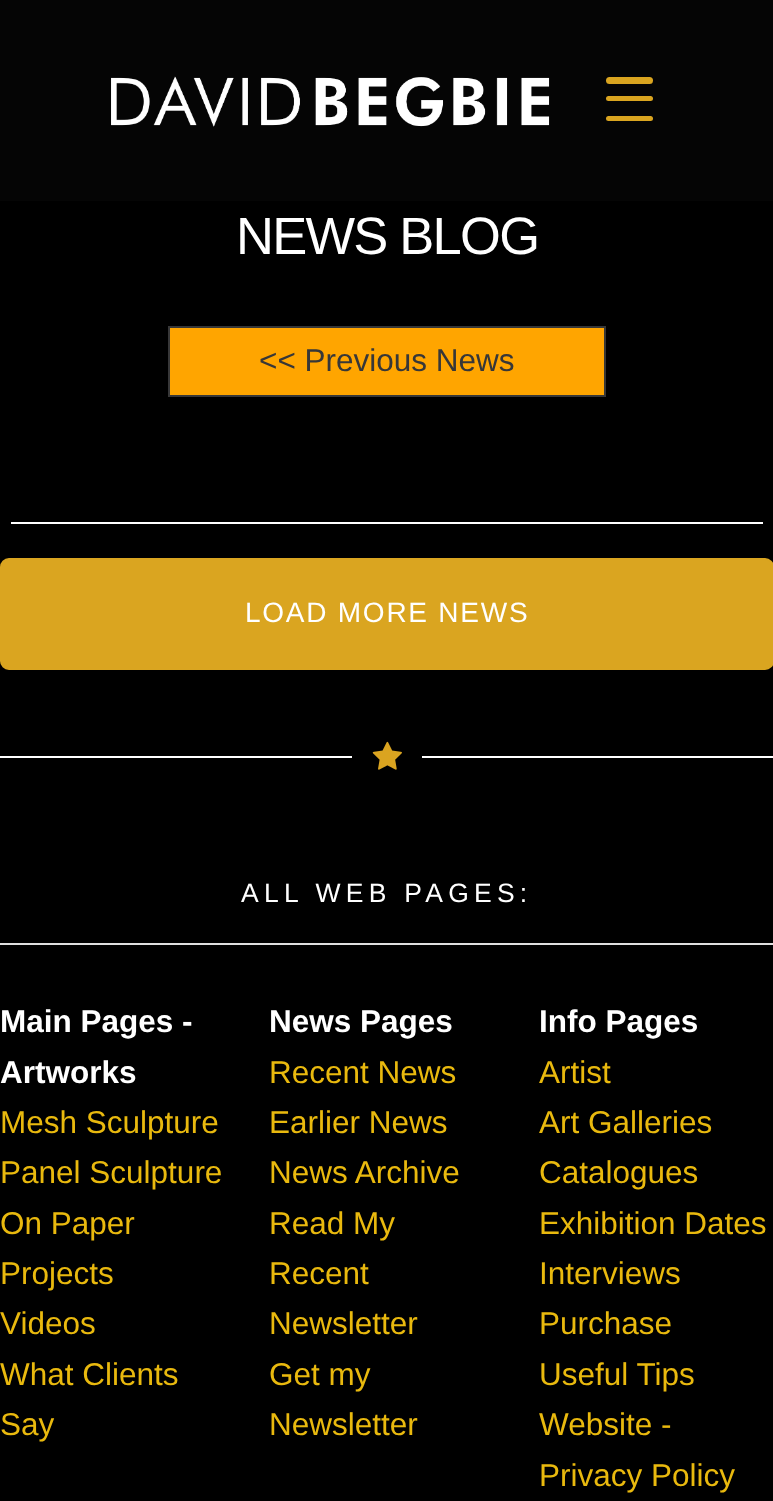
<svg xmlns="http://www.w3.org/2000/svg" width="773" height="1501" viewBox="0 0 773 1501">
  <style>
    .t1 { font: 52.5px Liberation Sans; letter-spacing: -1.75px; fill: #fff; }
    .t2 { font: 31.5px Liberation Sans; fill: #373738; }
    .t3 { font: 28px Liberation Sans; letter-spacing: 1.75px; fill: #fff; }
    .t4 { font: 26.5px Liberation Sans; letter-spacing: 5.25px; fill: #fff; }
    .t5 { font: bold 31.5px Liberation Sans; fill: #fff; }
    .t6 { font: 31.5px Liberation Sans; fill: #e9b90e; }
  </style>
  <rect width="100%" height="100%" fill="#000"/>
  <rect x="0" y="0" width="773" height="201" fill="#050505"/>
  <image x="111" y="76" width="439" height="51" href="images/1.png"/>
  <rect x="606" y="77" width="47" height="7" rx="3.5" fill="#daa520"/>
  <rect x="606" y="96" width="47" height="5" rx="2.5" fill="#daa520"/>
  <rect x="606" y="116" width="47" height="5" rx="2.5" fill="#daa520"/>
  <text x="236" y="254" class="t1">NEWS BLOG</text>
  <rect x="11" y="522" width="752" height="2" fill="#fff"/>
  <rect x="169" y="327" width="436" height="69" fill="#ffa500" stroke="#373738" stroke-width="2"/>
  <text x="259" y="371" class="t2">&lt;&lt; Previous News</text>
  <rect x="1" y="559" width="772" height="110" rx="8" fill="#daa520" stroke="#daa520" stroke-width="2"/>
  <text x="245" y="622" class="t3">LOAD MORE NEWS</text>
  <rect x="0" y="756" width="352" height="2" fill="#fff"/>
  <image x="372" y="741" width="30" height="29" href="images/2.png"/>
  <rect x="422" y="756" width="351" height="2" fill="#fff"/>
  <rect x="0" y="943" width="773" height="2" fill="#dfdfdf"/>
  <text x="241" y="902" class="t4">ALL WEB PAGES:</text>
  <text x="0" y="1032" class="t5">Main Pages -</text>
  <text x="0" y="1083" class="t5">Artworks</text>
  <text x="0" y="1133" class="t6">Mesh Sculpture</text>
  <text x="0" y="1183" class="t6">Panel Sculpture</text>
  <text x="0" y="1234" class="t6">On Paper</text>
  <text x="0" y="1284" class="t6">Projects</text>
  <text x="0" y="1334" class="t6">Videos</text>
  <text x="0" y="1385" class="t6">What Clients</text>
  <text x="0" y="1435" class="t6">Say</text>
  <text x="269" y="1032" class="t5">News Pages</text>
  <text x="269" y="1083" class="t6">Recent News</text>
  <text x="269" y="1133" class="t6">Earlier News</text>
  <text x="269" y="1183" class="t6">News Archive</text>
  <text x="269" y="1234" class="t6">Read My</text>
  <text x="269" y="1284" class="t6">Recent</text>
  <text x="269" y="1334" class="t6">Newsletter</text>
  <text x="269" y="1385" class="t6">Get my</text>
  <text x="269" y="1435" class="t6">Newsletter</text>
  <text x="539" y="1032" class="t5">Info Pages</text>
  <text x="539" y="1083" class="t6">Artist</text>
  <text x="539" y="1133" class="t6">Art Galleries</text>
  <text x="539" y="1183" class="t6">Catalogues</text>
  <text x="539" y="1234" class="t6">Exhibition Dates</text>
  <text x="539" y="1284" class="t6">Interviews</text>
  <text x="539" y="1334" class="t6">Purchase</text>
  <text x="539" y="1385" class="t6">Useful Tips</text>
  <text x="539" y="1435" class="t6">Website -</text>
  <text x="539" y="1486" class="t6">Privacy Policy</text>
</svg>
